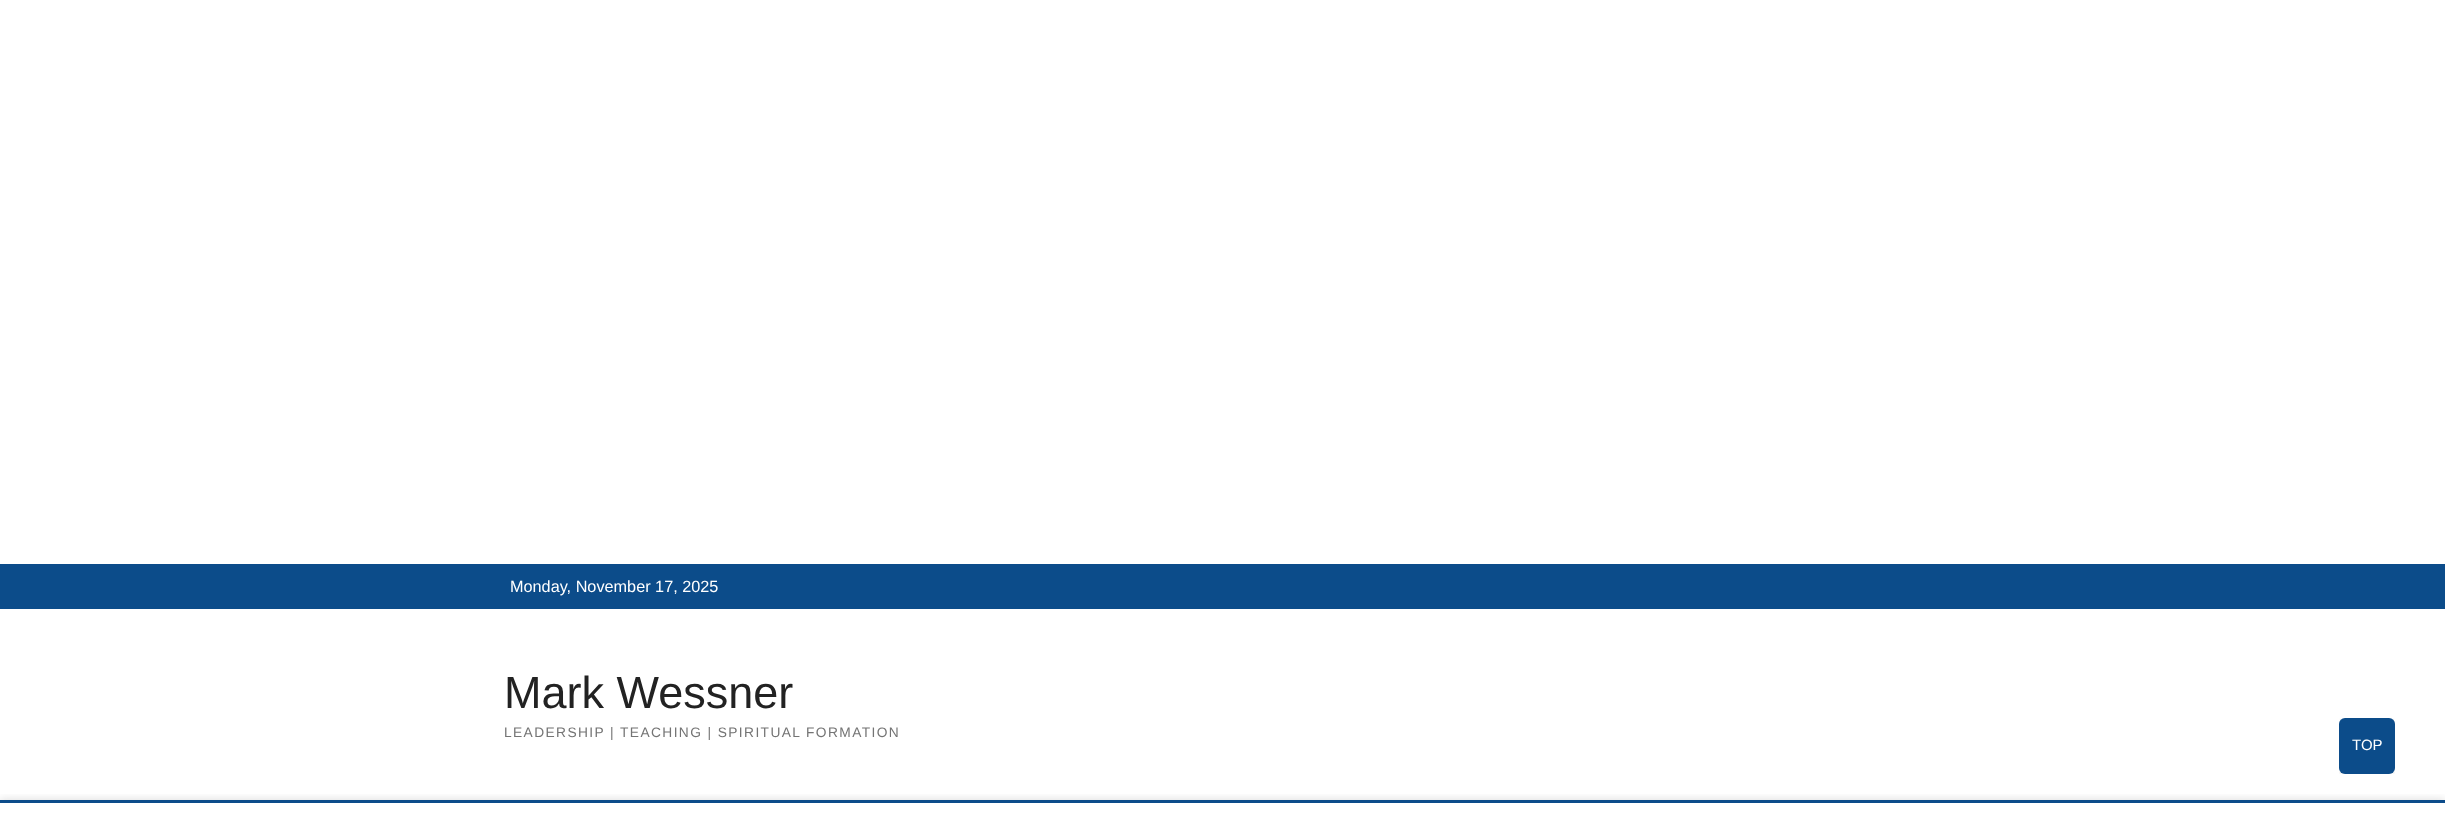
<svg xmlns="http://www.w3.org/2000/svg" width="2445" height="823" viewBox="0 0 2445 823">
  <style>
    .t1 { font: 16.25px Liberation Sans; fill: #fff; }
    .t2 { font: 45px Liberation Sans; fill: #222; }
    .t3 { font: 13.75px Liberation Sans; letter-spacing: 1.4px; fill: #747474; }
    .t4 { font: 15px Liberation Sans; fill: #fff; }
  </style>
  <defs>
    <clipPath id="clip1"><rect x="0" y="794" width="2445" height="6"/></clipPath>
    <clipPath id="clip2"><rect x="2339" y="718" width="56" height="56"/></clipPath>
  </defs>
  <rect width="100%" height="100%" fill="#fff"/>
  <rect x="0" y="564" width="2445" height="45" fill="#0c4c8a"/>
  <text x="510" y="592" class="t1">Monday, November 17, 2025</text>
  <text x="504" y="708" class="t2">Mark Wessner</text>
  <text x="504" y="737" class="t3">LEADERSHIP | TEACHING | SPIRITUAL FORMATION</text>
  <g clip-path="url(#clip1)">
    <rect x="0" y="800" width="2445" height="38" fill="#00000026" filter="blur(5px)"/>
  </g>
  <rect x="0" y="800" width="2445" height="3" fill="#0c4c8a"/>
  <g clip-path="url(#clip2)">
    <rect x="2339" y="720" width="56" height="56" rx="6" fill="#00000014" filter="blur(2px)"/>
  </g>
  <rect x="2339" y="718" width="56" height="56" rx="6" fill="#0c4c8a"/>
  <text x="2352" y="750" class="t4">TOP</text>
</svg>
